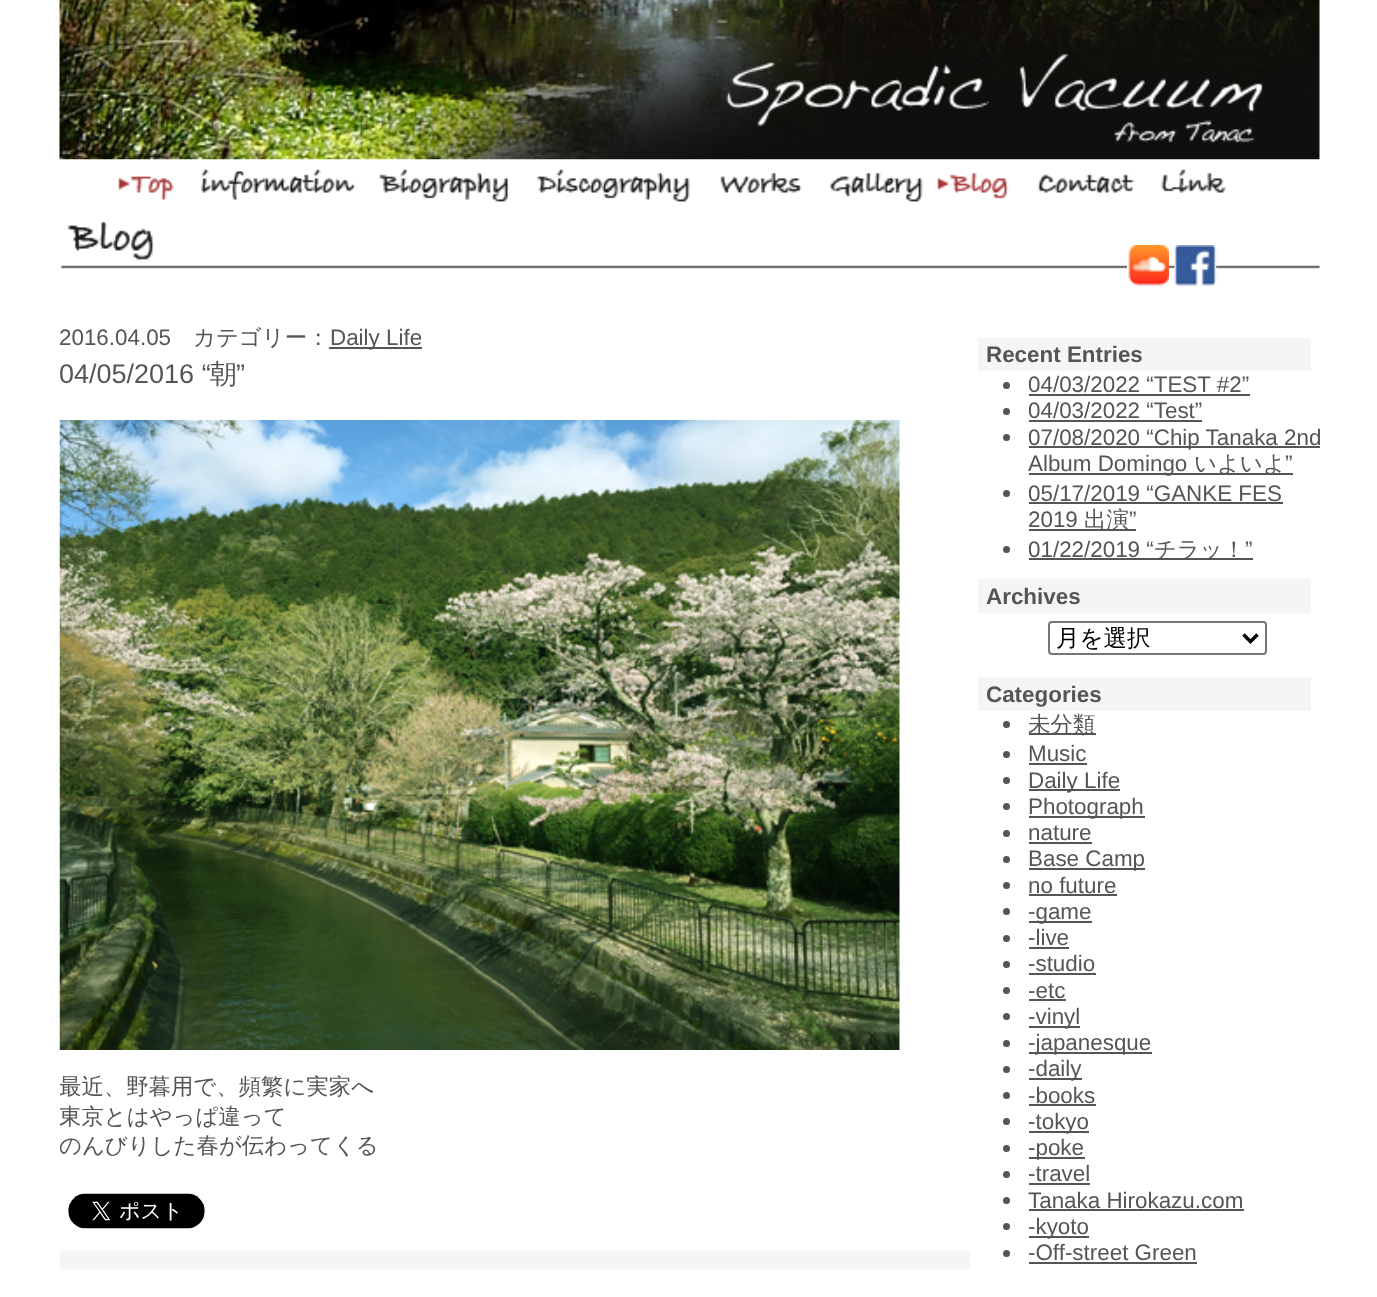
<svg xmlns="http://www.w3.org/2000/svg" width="1377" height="1297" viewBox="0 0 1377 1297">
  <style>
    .t1 { font: 22.4px Liberation Sans; fill: #555; }
    .t2 { font: 500 22.4px WenQuanYi Zen Hei; fill: #555; }
    .t3 { font: 27px Liberation Sans; fill: #555; }
    .t4 { font: 500 27px WenQuanYi Zen Hei; fill: #555; }
    .t5 { font: bold 22.4px Liberation Sans; fill: #555; }
    .t6 { font: 500 23.5px WenQuanYi Zen Hei; fill: #000; }
  </style>
  <defs>
    <clipPath id="clip1"><rect x="60" y="324" width="1260" height="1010"/></clipPath>
  </defs>
  <rect width="100%" height="100%" fill="#fff"/>
  <image x="59" y="0" width="1261" height="160" href="images/1.png"/>
  <image x="118" y="176" width="56" height="24" href="images/2.png"/>
  <image x="186" y="169" width="170" height="31" href="images/3.png"/>
  <image x="509" y="169" width="1" height="33" href="images/4.png"/>
  <image x="367" y="169" width="142" height="33" href="images/5.png"/>
  <image x="524" y="169" width="166" height="33" href="images/6.png"/>
  <image x="706" y="172" width="96" height="21" href="images/7.png"/>
  <image x="815" y="172" width="108" height="30" href="images/8.png"/>
  <image x="937" y="172" width="72" height="27" href="images/9.png"/>
  <image x="1023" y="174" width="112" height="19" href="images/10.png"/>
  <image x="1147" y="169" width="79" height="24" href="images/11.png"/>
  <image x="60" y="221" width="1260" height="48" href="images/14.png"/>
  <image x="1127" y="245" width="42" height="42" href="images/12.png"/>
  <image x="1174" y="245" width="43" height="41" href="images/13.png"/>
  <rect x="60" y="1251" width="910" height="18" fill="#f5f5f5"/>
  <text x="59" y="345" class="t1">2016.04.05</text>
  <text x="193" y="345" class="t2">カテゴリー：</text>
  <rect x="329" y="347" width="93" height="2" fill="#555"/>
  <text x="330" y="345" class="t1">Daily Life</text>
  <g clip-path="url(#clip1)">
    <text x="59" y="383" class="t3">04/05/2016 “</text>
  </g>
  <text x="210" y="383" class="t4">朝</text>
  <text x="236" y="383" class="t3">”</text>
  <image x="59" y="420" width="841" height="630" href="images/15.png"/>
  <g clip-path="url(#clip1)">
    <text x="59" y="1094" class="t2">最近、野暮用で、頻繁に実家へ</text>
    <text x="59" y="1124" class="t2">東京とはやっぱ違って</text>
    <text x="59" y="1153" class="t2">のんびりした春が伝わってくる</text>
  </g>
  <image x="68" y="1193" width="137" height="36" href="images/16.png"/>
  <rect x="978" y="338" width="333" height="33" fill="#f5f5f5"/>
  <text x="986" y="362" class="t5">Recent Entries</text>
  <circle cx="1006.5" cy="385.5" r="3.5" fill="#555"/>
  <text x="1028" y="392" class="t1">04/03/2022 “TEST #2”</text>
  <rect x="1029" y="394" width="221" height="2" fill="#555"/>
  <circle cx="1006.5" cy="411.5" r="3.5" fill="#555"/>
  <text x="1028" y="418" class="t1">04/03/2022 “Test”</text>
  <rect x="1029" y="420" width="173" height="2" fill="#555"/>
  <circle cx="1006.5" cy="437.5" r="3.5" fill="#555"/>
  <rect x="1029" y="446" width="291" height="2" fill="#555"/>
  <g clip-path="url(#clip1)">
    <text x="1028" y="445" class="t1">07/08/2020 “Chip Tanaka 2nd</text>
  </g>
  <rect x="1029" y="473" width="264" height="2" fill="#555"/>
  <text x="1028" y="471" class="t1">Album Domingo</text>
  <text x="1194" y="471" class="t2">いよいよ</text>
  <text x="1285" y="471" class="t1">”</text>
  <circle cx="1006.5" cy="493.5" r="3.5" fill="#555"/>
  <text x="1028" y="501" class="t1">05/17/2019 “GANKE FES</text>
  <rect x="1029" y="502" width="254" height="2" fill="#555"/>
  <text x="1028" y="527" class="t1">2019</text>
  <rect x="1029" y="529" width="107" height="2" fill="#555"/>
  <text x="1084" y="527" class="t2">出演</text>
  <text x="1129" y="527" class="t1">”</text>
  <text x="1028" y="557" class="t1">01/22/2019 “</text>
  <rect x="1029" y="558" width="224" height="2" fill="#555"/>
  <text x="1154" y="557" class="t2">チラッ！</text>
  <text x="1245" y="557" class="t1">”</text>
  <circle cx="1006.5" cy="549.5" r="3.5" fill="#555"/>
  <rect x="978" y="579" width="333" height="34" fill="#f5f5f5"/>
  <text x="986" y="604" class="t5">Archives</text>
  <rect x="1049" y="622" width="217" height="32" rx="3" fill="none" stroke="#767676" stroke-width="2"/>
  <path d="M1243.5 634.5L1250.5 641.5L1257.5 634.5" fill="none" stroke="#000" stroke-width="3.5"/>
  <text x="1056" y="646" class="t6">月を選択</text>
  <rect x="978" y="677" width="333" height="34" fill="#f5f5f5"/>
  <text x="986" y="702" class="t5">Categories</text>
  <circle cx="1006.5" cy="724.5" r="3.5" fill="#555"/>
  <rect x="1029" y="733" width="67" height="2" fill="#555"/>
  <text x="1028" y="732" class="t2">未分類</text>
  <circle cx="1006.5" cy="754.5" r="3.5" fill="#555"/>
  <text x="1028" y="761" class="t1">Music</text>
  <rect x="1029" y="763" width="58" height="2" fill="#555"/>
  <circle cx="1006.5" cy="780.5" r="3.5" fill="#555"/>
  <rect x="1029" y="789" width="91" height="2" fill="#555"/>
  <text x="1028" y="788" class="t1">Daily Life</text>
  <circle cx="1006.5" cy="806.5" r="3.5" fill="#555"/>
  <rect x="1029" y="816" width="116" height="2" fill="#555"/>
  <text x="1028" y="814" class="t1">Photograph</text>
  <circle cx="1006.5" cy="833.5" r="3.5" fill="#555"/>
  <text x="1028" y="840" class="t1">nature</text>
  <rect x="1029" y="842" width="63" height="2" fill="#555"/>
  <circle cx="1006.5" cy="859.5" r="3.5" fill="#555"/>
  <rect x="1029" y="868" width="116" height="2" fill="#555"/>
  <text x="1028" y="866" class="t1">Base Camp</text>
  <circle cx="1006.5" cy="885.5" r="3.5" fill="#555"/>
  <text x="1028" y="893" class="t1">no future</text>
  <rect x="1029" y="894" width="88" height="2" fill="#555"/>
  <circle cx="1006.5" cy="911.5" r="3.5" fill="#555"/>
  <rect x="1029" y="921" width="63" height="2" fill="#555"/>
  <text x="1028" y="919" class="t1">-game</text>
  <circle cx="1006.5" cy="938.5" r="3.5" fill="#555"/>
  <text x="1028" y="945" class="t1">-live</text>
  <rect x="1029" y="947" width="40" height="2" fill="#555"/>
  <circle cx="1006.5" cy="964.5" r="3.5" fill="#555"/>
  <text x="1028" y="971" class="t1">-studio</text>
  <rect x="1029" y="973" width="67" height="2" fill="#555"/>
  <circle cx="1006.5" cy="990.5" r="3.5" fill="#555"/>
  <text x="1028" y="998" class="t1">-etc</text>
  <rect x="1029" y="999" width="37" height="2" fill="#555"/>
  <circle cx="1006.5" cy="1016.5" r="3.5" fill="#555"/>
  <rect x="1029" y="1026" width="51" height="2" fill="#555"/>
  <text x="1028" y="1024" class="t1">-vinyl</text>
  <circle cx="1006.5" cy="1043.5" r="3.5" fill="#555"/>
  <rect x="1029" y="1052" width="123" height="2" fill="#555"/>
  <text x="1028" y="1050" class="t1">-japanesque</text>
  <circle cx="1006.5" cy="1069.5" r="3.5" fill="#555"/>
  <rect x="1029" y="1078" width="53" height="2" fill="#555"/>
  <text x="1028" y="1076" class="t1">-daily</text>
  <circle cx="1006.5" cy="1095.5" r="3.5" fill="#555"/>
  <text x="1028" y="1103" class="t1">-books</text>
  <rect x="1029" y="1104" width="67" height="2" fill="#555"/>
  <circle cx="1006.5" cy="1121.5" r="3.5" fill="#555"/>
  <rect x="1029" y="1131" width="60" height="2" fill="#555"/>
  <text x="1028" y="1129" class="t1">-tokyo</text>
  <circle cx="1006.5" cy="1148.5" r="3.5" fill="#555"/>
  <rect x="1029" y="1157" width="56" height="2" fill="#555"/>
  <text x="1028" y="1155" class="t1">-poke</text>
  <circle cx="1006.5" cy="1174.5" r="3.5" fill="#555"/>
  <text x="1028" y="1181" class="t1">-travel</text>
  <rect x="1029" y="1183" width="61" height="2" fill="#555"/>
  <circle cx="1006.5" cy="1200.5" r="3.5" fill="#555"/>
  <text x="1028" y="1208" class="t1">Tanaka Hirokazu.com</text>
  <rect x="1029" y="1209" width="215" height="2" fill="#555"/>
  <circle cx="1006.5" cy="1226.5" r="3.5" fill="#555"/>
  <rect x="1029" y="1236" width="60" height="2" fill="#555"/>
  <text x="1028" y="1234" class="t1">-kyoto</text>
  <circle cx="1006.5" cy="1253.5" r="3.5" fill="#555"/>
  <text x="1028" y="1260" class="t1">-Off-street Green</text>
  <rect x="1029" y="1262" width="168" height="2" fill="#555"/>
</svg>
